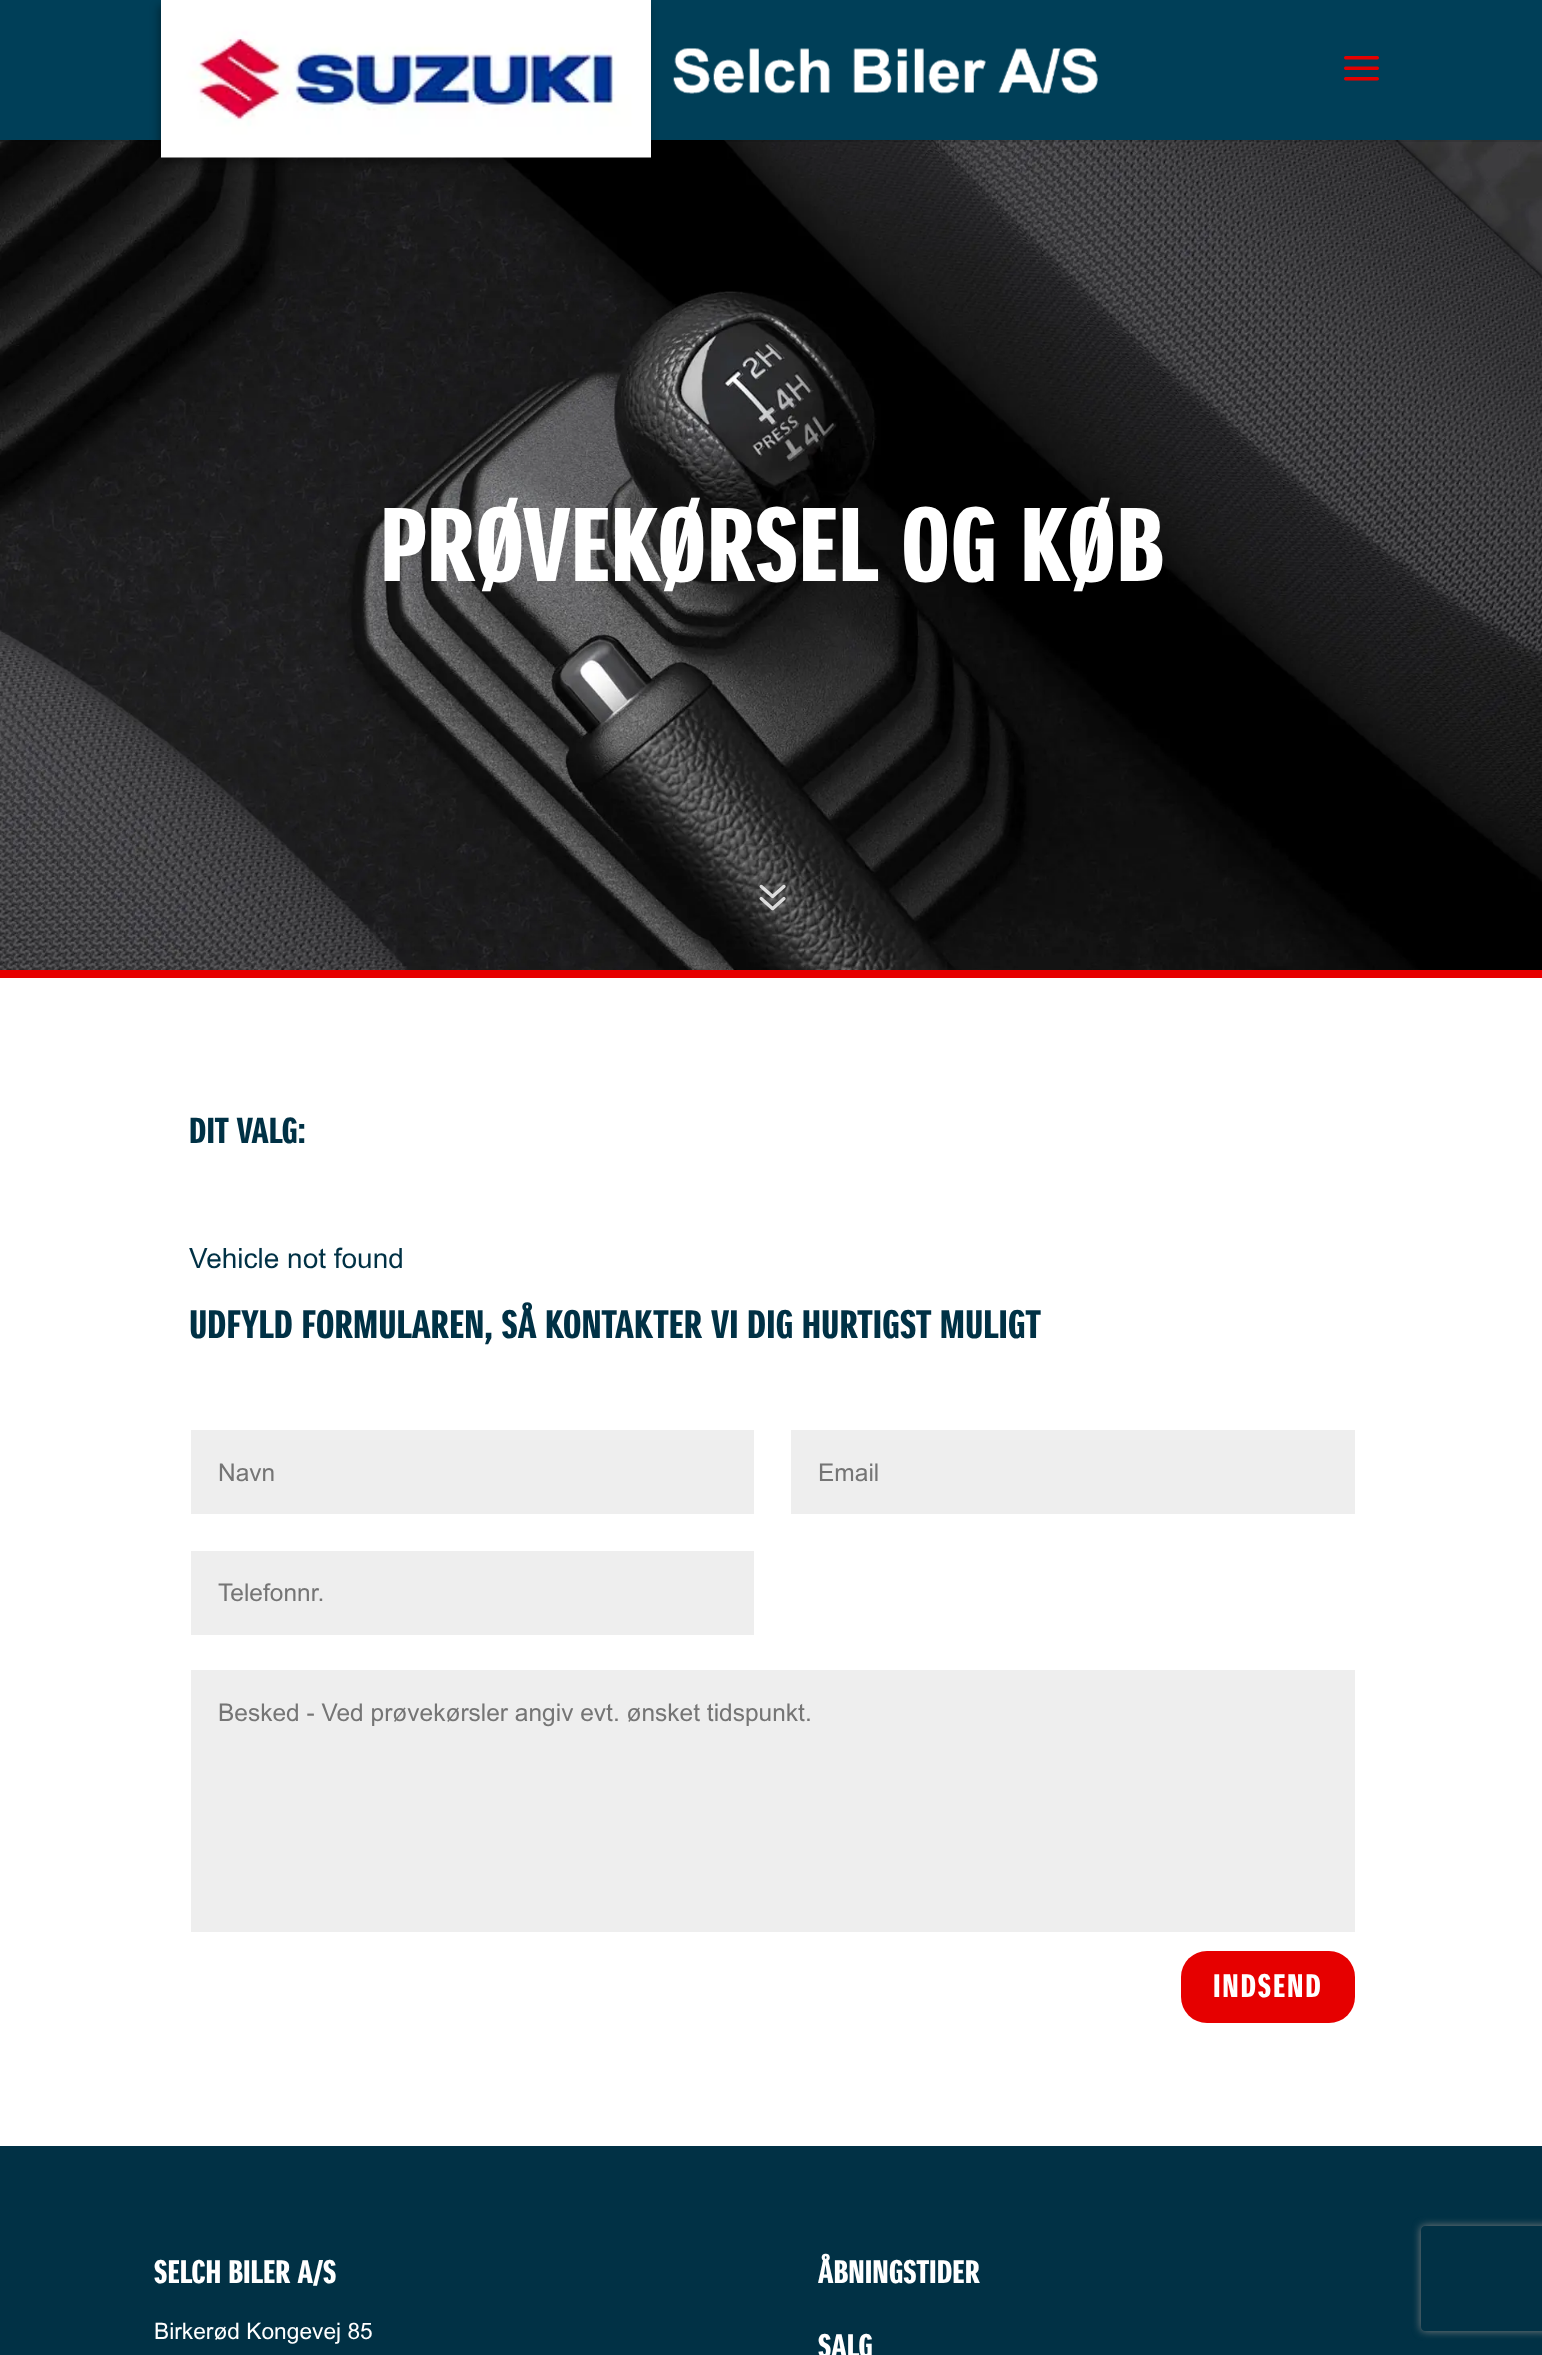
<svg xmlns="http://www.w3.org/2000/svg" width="1542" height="2355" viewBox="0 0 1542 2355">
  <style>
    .t1 { font: bold 101.5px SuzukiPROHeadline; fill: #fff; }
    .t2 { font: bold 35px SuzukiPROHeadline; fill: #003145; }
    .t3 { font: 28px Arial; fill: #003145; }
    .t4 { font: bold 38.5px SuzukiPROHeadline; fill: #003145; }
    .t5 { font: 24.5px Arial; fill: #757575; }
    .t6 { font: bold 31.5px SuzukiPROHeadline; letter-spacing: 1.75px; fill: #fff; }
    .t7 { font: bold 31.5px SuzukiPROHeadline; fill: #fff; }
    .t8 { font: 22.75px Arial; fill: #fff; }
  </style>
  <defs>
    <clipPath id="clip1"><path d="M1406 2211H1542V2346H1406ZM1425 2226H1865C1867 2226 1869 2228 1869 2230V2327C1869 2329 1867 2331 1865 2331H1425C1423 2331 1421 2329 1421 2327V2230C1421 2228 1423 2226 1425 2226Z" clip-rule="evenodd"/></clipPath>
  </defs>
  <rect width="100%" height="100%" fill="#013145"/>
  <image x="0" y="140" width="1542" height="830" href="images/4.png"/>
  <path d="M0 140V142H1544V2V140Z" fill="#0000001a"/>
  <rect x="0" y="0" width="1542" height="140" fill="#003f58"/>
  <rect x="159" y="5" width="490" height="158" fill="#00000061" filter="blur(4.5px)"/>
  <image x="161" y="0" width="490" height="158" href="images/1.png"/>
  <image x="673" y="48" width="425" height="46" href="images/2.png"/>
  <image x="1344" y="56" width="35" height="25" href="images/3.png"/>
  <rect x="0" y="970" width="1542" height="8" fill="#e60000"/>
  <text x="380" y="581" class="t1">PRØVEKØRSEL OG KØB</text>
  <image x="759" y="884" width="27" height="27" href="images/5.png"/>
  <rect x="0" y="978" width="1542" height="1168" fill="#fff"/>
  <text x="189" y="1143" class="t2">DIT VALG:</text>
  <text x="189" y="1268" class="t3">Vehicle not found</text>
  <text x="189" y="1338" class="t4">UDFYLD FORMULAREN, SÅ KONTAKTER VI DIG HURTIGST MULIGT</text>
  <rect x="191" y="1430" width="563" height="84" fill="#eee"/>
  <text x="218" y="1481" class="t5">Navn</text>
  <rect x="791" y="1430" width="564" height="84" fill="#eee"/>
  <text x="818" y="1481" class="t5">Email</text>
  <rect x="191" y="1551" width="563" height="84" fill="#eee"/>
  <text x="218" y="1601" class="t5">Telefonnr.</text>
  <rect x="191" y="1670" width="1164" height="262" fill="#eee"/>
  <text x="218" y="1721" class="t5">Besked - Ved prøvekørsler angiv evt. ønsket tidspunkt.</text>
  <rect x="1181" y="1951" width="174" height="72" rx="26" fill="#e60000"/>
  <text x="1213" y="1997" class="t6">INDSEND</text>
  <text x="154" y="2283" class="t7">SELCH BILER A/S</text>
  <text x="154" y="2339" class="t8">Birkerød Kongevej 85</text>
  <text x="818" y="2283" class="t7">ÅBNINGSTIDER</text>
  <text x="818" y="2357" class="t7">SALG</text>
  <g clip-path="url(#clip1)">
    <rect x="1421" y="2226" width="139" height="105" rx="4" fill="#808080" filter="blur(4.5px)"/>
  </g>
</svg>
